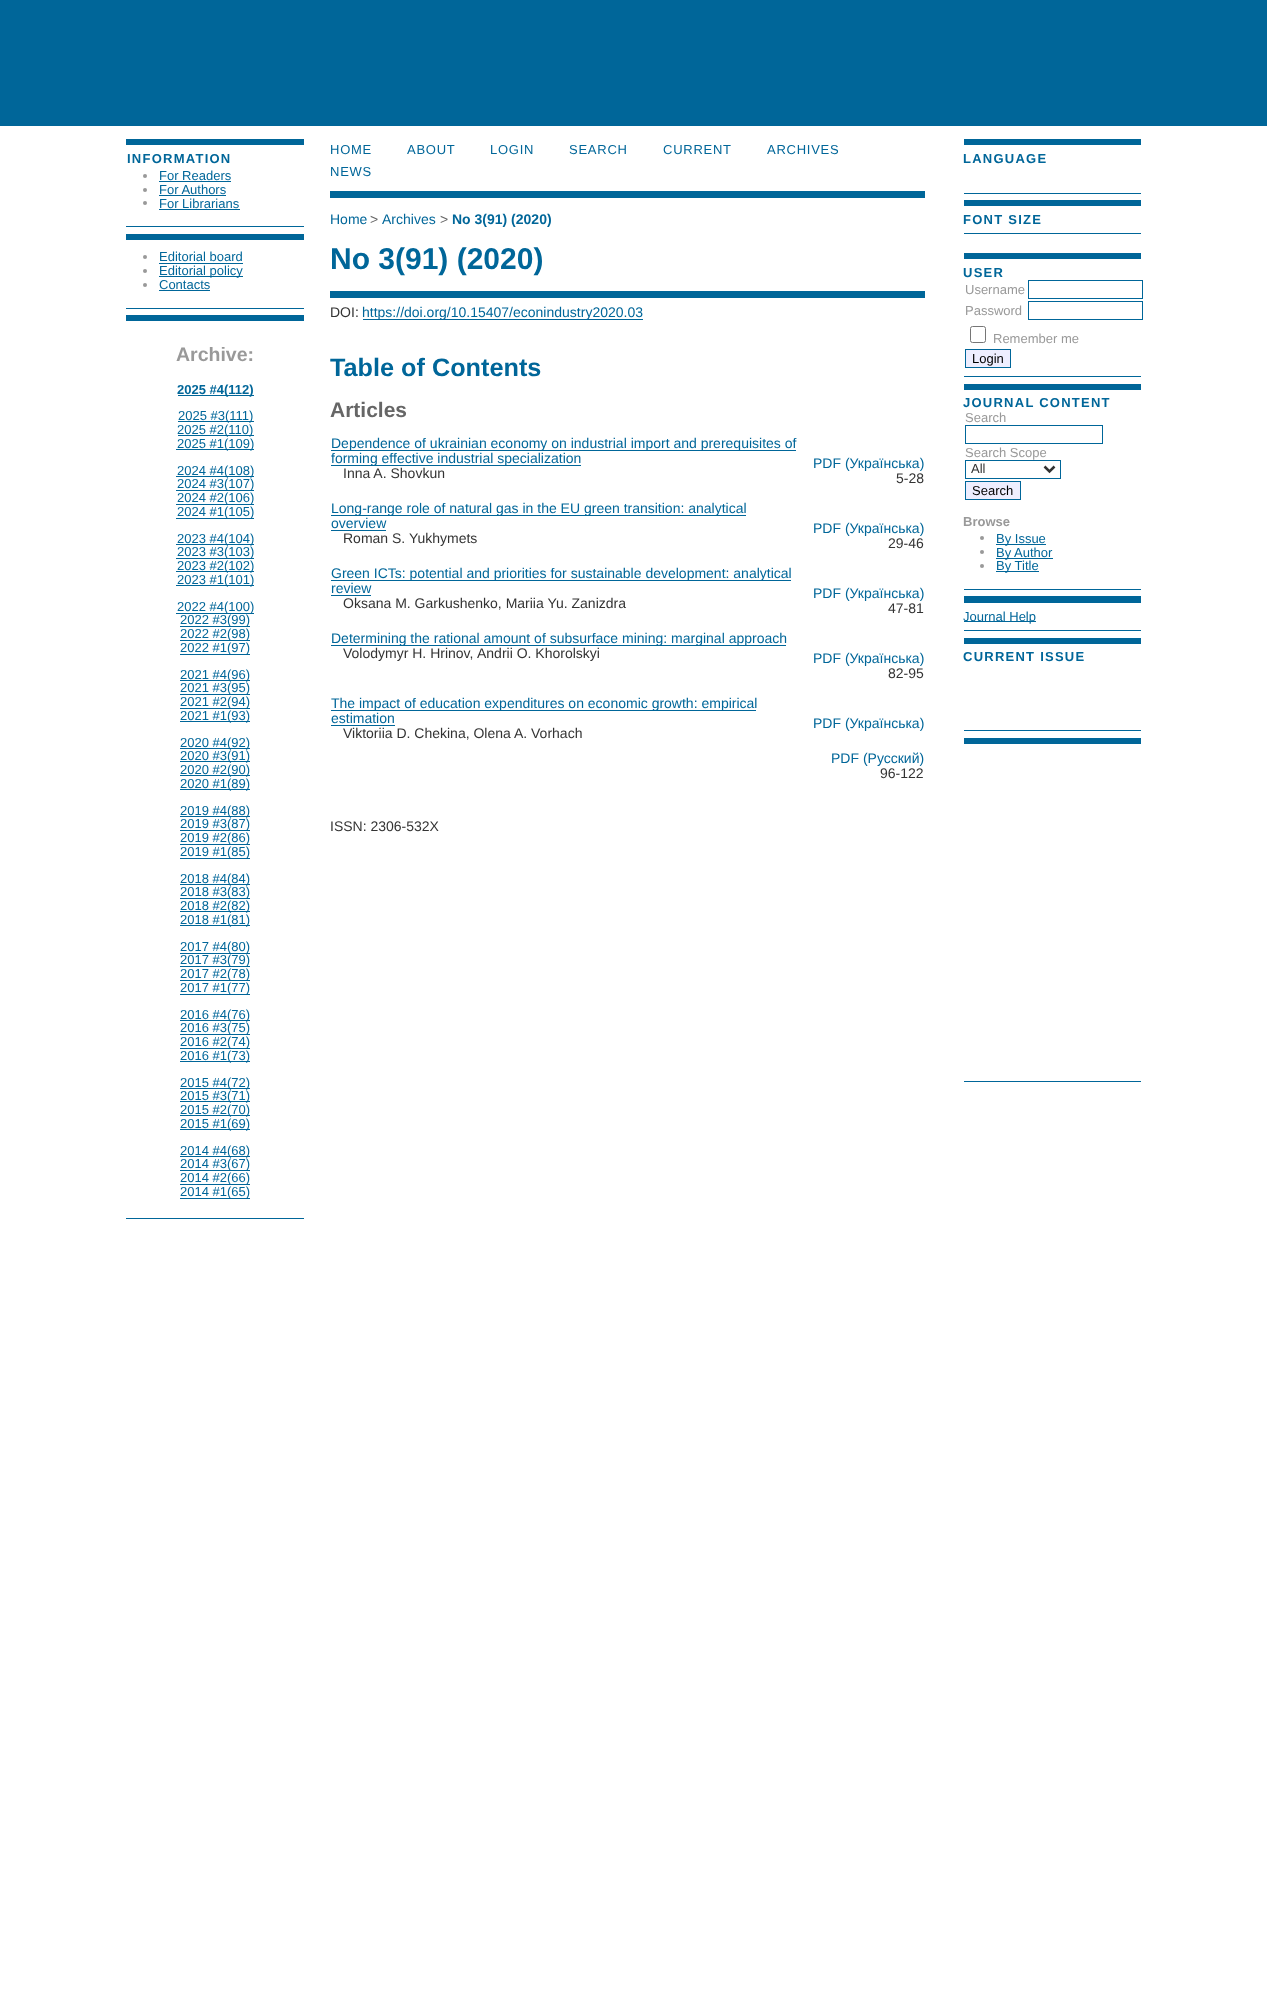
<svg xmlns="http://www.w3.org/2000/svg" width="1267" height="2015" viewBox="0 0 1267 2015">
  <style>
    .t1 { font: 13px Liberation Sans; letter-spacing: 0.75px; fill: #069; }
    .t2 { font: 14px Liberation Sans; fill: #069; }
    .t3 { font: 14px Liberation Sans; fill: #666; }
    .t4 { font: bold 14px Liberation Sans; fill: #069; }
    .t5 { font: bold 30px Liberation Sans; fill: #069; }
    .t6 { font: 14px Liberation Sans; fill: #333; }
    .t7 { font: bold 25.25px Liberation Sans; fill: #069; }
    .t8 { font: bold 21px Liberation Sans; fill: #666; }
    .t9 { font: bold 13px Liberation Sans; letter-spacing: 1.25px; fill: #069; }
    .t10 { font: 13px Liberation Sans; fill: #069; }
    .t11 { font: bold 19.5px Liberation Sans; fill: #999; }
    .t12 { font: bold 13px Liberation Sans; fill: #069; }
    .t13 { font: 13px Liberation Sans; fill: #999; }
    .t14 { font: 13px Liberation Sans; fill: #000; }
    .t15 { font: 13px Liberation Sans; fill: #333; }
    .t16 { font: bold 13px Liberation Sans; fill: #999; }
  </style>
  <defs>
    <clipPath id="clip1"><rect x="330" y="126" width="595" height="748"/></clipPath>
  </defs>
  <rect width="100%" height="100%" fill="#fff"/>
  <rect x="0" y="0" width="1267" height="126" fill="#069"/>
  <rect x="330" y="191" width="595" height="7" fill="#069"/>
  <text x="330" y="154" class="t1">HOME</text>
  <text x="407" y="154" class="t1">ABOUT</text>
  <text x="490" y="154" class="t1">LOGIN</text>
  <text x="569" y="154" class="t1">SEARCH</text>
  <text x="663" y="154" class="t1">CURRENT</text>
  <text x="767" y="154" class="t1">ARCHIVES</text>
  <text x="330" y="176" class="t1">NEWS</text>
  <text x="330" y="224" class="t2">Home</text>
  <text x="370" y="224" class="t3">&gt;</text>
  <text x="382" y="224" class="t2">Archives</text>
  <text x="440" y="224" class="t3">&gt;</text>
  <text x="452" y="224" class="t4">No 3(91) (2020)</text>
  <text x="330" y="269" class="t5">No 3(91) (2020)</text>
  <rect x="330" y="291" width="595" height="7" fill="#069"/>
  <text x="330" y="317" class="t6">DOI:</text>
  <rect x="363" y="319" width="280" height="1" fill="#069"/>
  <text x="362" y="317" class="t2">https://doi.org/10.15407/econindustry2020.03</text>
  <g clip-path="url(#clip1)">
    <text x="330" y="376" class="t7">Table of Contents</text>
  </g>
  <text x="330" y="417" class="t8">Articles</text>
  <rect x="331" y="450" width="465" height="1" fill="#069"/>
  <text x="331" y="448" class="t2">Dependence of ukrainian economy on industrial import and prerequisites of</text>
  <rect x="331" y="465" width="250" height="1" fill="#069"/>
  <text x="331" y="463" class="t2">forming effective industrial specialization</text>
  <text x="343" y="478" class="t6">Inna A. Shovkun</text>
  <text x="813" y="468" class="t2">PDF (Українська)</text>
  <text x="896" y="483" class="t6">5-28</text>
  <rect x="331" y="515" width="415" height="1" fill="#069"/>
  <text x="331" y="513" class="t2">Long-range role of natural gas in the EU green transition: analytical</text>
  <text x="331" y="528" class="t2">overview</text>
  <rect x="331" y="530" width="55" height="1" fill="#069"/>
  <text x="343" y="543" class="t6">Roman S. Yukhymets</text>
  <text x="813" y="533" class="t2">PDF (Українська)</text>
  <text x="888" y="548" class="t6">29-46</text>
  <rect x="331" y="580" width="460" height="1" fill="#069"/>
  <text x="331" y="578" class="t2">Green ICTs: potential and priorities for sustainable development: analytical</text>
  <text x="331" y="593" class="t2">review</text>
  <rect x="331" y="595" width="40" height="1" fill="#069"/>
  <text x="343" y="608" class="t6">Оksana M. Garkushenko, Мariia Yu. Zanizdra</text>
  <text x="813" y="598" class="t2">PDF (Українська)</text>
  <text x="888" y="613" class="t6">47-81</text>
  <rect x="331" y="645" width="455" height="1" fill="#069"/>
  <text x="331" y="643" class="t2">Determining the rational amount of subsurface mining: marginal approach</text>
  <text x="343" y="658" class="t6">Volodymyr H. Hrinov,</text>
  <text x="477" y="658" class="t6">Andrii O. Khorolskyi</text>
  <text x="813" y="663" class="t2">PDF (Українська)</text>
  <text x="888" y="678" class="t6">82-95</text>
  <rect x="331" y="710" width="425" height="1" fill="#069"/>
  <text x="331" y="708" class="t2">The impact of education expenditures on economic growth: empirical</text>
  <text x="331" y="723" class="t2">estimation</text>
  <rect x="331" y="725" width="64" height="1" fill="#069"/>
  <text x="343" y="738" class="t6">Viktoriia D. Chekina, Olena A. Vorhach</text>
  <text x="813" y="728" class="t2">PDF (Українська)</text>
  <text x="831" y="763" class="t2">PDF (Русский)</text>
  <text x="880" y="778" class="t6">96-122</text>
  <text x="330" y="831" class="t6">ISSN: 2306-532X</text>
  <rect x="126" y="139" width="178" height="6" fill="#069"/>
  <rect x="126" y="226" width="178" height="1" fill="#069"/>
  <text x="127" y="163" class="t9">INFORMATION</text>
  <circle cx="145" cy="176" r="2" fill="#999"/>
  <text x="159" y="180" class="t10">For Readers</text>
  <rect x="159" y="181" width="72" height="1" fill="#069"/>
  <circle cx="145" cy="190" r="2" fill="#999"/>
  <text x="159" y="194" class="t10">For Authors</text>
  <rect x="159" y="195" width="67" height="1" fill="#069"/>
  <circle cx="145" cy="203" r="2" fill="#999"/>
  <text x="159" y="208" class="t10">For Librarians</text>
  <rect x="159" y="209" width="81" height="1" fill="#069"/>
  <rect x="126" y="234" width="178" height="6" fill="#069"/>
  <rect x="126" y="308" width="178" height="1" fill="#069"/>
  <circle cx="145" cy="257" r="2" fill="#999"/>
  <text x="159" y="261" class="t10">Editorial board</text>
  <rect x="159" y="263" width="84" height="1" fill="#069"/>
  <circle cx="145" cy="271" r="2" fill="#999"/>
  <rect x="159" y="276" width="84" height="1" fill="#069"/>
  <text x="159" y="275" class="t10">Editorial policy</text>
  <circle cx="145" cy="285" r="2" fill="#999"/>
  <text x="159" y="289" class="t10">Contacts</text>
  <rect x="159" y="290" width="51" height="1" fill="#069"/>
  <rect x="126" y="315" width="178" height="6" fill="#069"/>
  <rect x="126" y="1218" width="178" height="1" fill="#069"/>
  <text x="176" y="361" class="t11">Archive:</text>
  <rect x="178" y="395" width="76" height="1" fill="#069"/>
  <text x="177" y="394" class="t12">2025 #4(112)</text>
  <rect x="178" y="421" width="76" height="1" fill="#069"/>
  <text x="178" y="420" class="t10">2025 #3(111)</text>
  <rect x="178" y="435" width="76" height="1" fill="#069"/>
  <text x="177" y="434" class="t10">2025 #2(110)</text>
  <rect x="176" y="449" width="78" height="1" fill="#069"/>
  <text x="177" y="448" class="t10">2025 #1(109)</text>
  <rect x="176" y="476" width="78" height="1" fill="#069"/>
  <text x="177" y="475" class="t10">2024 #4(108)</text>
  <rect x="176" y="490" width="78" height="1" fill="#069"/>
  <text x="177" y="488" class="t10">2024 #3(107)</text>
  <rect x="176" y="504" width="78" height="1" fill="#069"/>
  <text x="177" y="502" class="t10">2024 #2(106)</text>
  <rect x="176" y="518" width="78" height="1" fill="#069"/>
  <text x="177" y="516" class="t10">2024 #1(105)</text>
  <rect x="176" y="544" width="78" height="1" fill="#069"/>
  <text x="177" y="543" class="t10">2023 #4(104)</text>
  <rect x="176" y="558" width="78" height="1" fill="#069"/>
  <text x="177" y="556" class="t10">2023 #3(103)</text>
  <rect x="176" y="571" width="78" height="1" fill="#069"/>
  <text x="177" y="570" class="t10">2023 #2(102)</text>
  <rect x="176" y="585" width="78" height="1" fill="#069"/>
  <text x="177" y="584" class="t10">2023 #1(101)</text>
  <rect x="176" y="613" width="78" height="1" fill="#069"/>
  <text x="177" y="611" class="t10">2022 #4(100)</text>
  <rect x="180" y="626" width="70" height="1" fill="#069"/>
  <text x="180" y="624" class="t10">2022 #3(99)</text>
  <rect x="180" y="640" width="70" height="1" fill="#069"/>
  <text x="180" y="638" class="t10">2022 #2(98)</text>
  <rect x="180" y="654" width="70" height="1" fill="#069"/>
  <text x="180" y="652" class="t10">2022 #1(97)</text>
  <rect x="180" y="680" width="70" height="1" fill="#069"/>
  <text x="180" y="679" class="t10">2021 #4(96)</text>
  <rect x="180" y="694" width="70" height="1" fill="#069"/>
  <text x="180" y="692" class="t10">2021 #3(95)</text>
  <rect x="180" y="708" width="70" height="1" fill="#069"/>
  <text x="180" y="706" class="t10">2021 #2(94)</text>
  <rect x="180" y="721" width="70" height="1" fill="#069"/>
  <text x="180" y="720" class="t10">2021 #1(93)</text>
  <rect x="180" y="748" width="70" height="1" fill="#069"/>
  <text x="180" y="747" class="t10">2020 #4(92)</text>
  <rect x="180" y="761" width="70" height="1" fill="#069"/>
  <text x="180" y="760" class="t10">2020 #3(91)</text>
  <rect x="180" y="775" width="70" height="1" fill="#069"/>
  <text x="180" y="774" class="t10">2020 #2(90)</text>
  <rect x="180" y="789" width="70" height="1" fill="#069"/>
  <text x="180" y="788" class="t10">2020 #1(89)</text>
  <rect x="180" y="816" width="70" height="1" fill="#069"/>
  <text x="180" y="815" class="t10">2019 #4(88)</text>
  <rect x="180" y="830" width="70" height="1" fill="#069"/>
  <text x="180" y="828" class="t10">2019 #3(87)</text>
  <rect x="180" y="844" width="70" height="1" fill="#069"/>
  <text x="180" y="842" class="t10">2019 #2(86)</text>
  <rect x="180" y="858" width="70" height="1" fill="#069"/>
  <text x="180" y="856" class="t10">2019 #1(85)</text>
  <rect x="180" y="884" width="70" height="1" fill="#069"/>
  <text x="180" y="883" class="t10">2018 #4(84)</text>
  <rect x="180" y="898" width="70" height="1" fill="#069"/>
  <text x="180" y="896" class="t10">2018 #3(83)</text>
  <rect x="180" y="911" width="70" height="1" fill="#069"/>
  <text x="180" y="910" class="t10">2018 #2(82)</text>
  <rect x="180" y="925" width="70" height="1" fill="#069"/>
  <text x="180" y="924" class="t10">2018 #1(81)</text>
  <rect x="180" y="953" width="70" height="1" fill="#069"/>
  <text x="180" y="951" class="t10">2017 #4(80)</text>
  <rect x="180" y="966" width="70" height="1" fill="#069"/>
  <text x="180" y="964" class="t10">2017 #3(79)</text>
  <rect x="180" y="980" width="70" height="1" fill="#069"/>
  <text x="180" y="978" class="t10">2017 #2(78)</text>
  <rect x="180" y="994" width="70" height="1" fill="#069"/>
  <text x="180" y="992" class="t10">2017 #1(77)</text>
  <rect x="180" y="1020" width="70" height="1" fill="#069"/>
  <text x="180" y="1019" class="t10">2016 #4(76)</text>
  <rect x="180" y="1034" width="70" height="1" fill="#069"/>
  <text x="180" y="1032" class="t10">2016 #3(75)</text>
  <rect x="180" y="1048" width="70" height="1" fill="#069"/>
  <text x="180" y="1046" class="t10">2016 #2(74)</text>
  <rect x="180" y="1061" width="70" height="1" fill="#069"/>
  <text x="180" y="1060" class="t10">2016 #1(73)</text>
  <rect x="180" y="1088" width="70" height="1" fill="#069"/>
  <text x="180" y="1087" class="t10">2015 #4(72)</text>
  <rect x="180" y="1101" width="70" height="1" fill="#069"/>
  <text x="180" y="1100" class="t10">2015 #3(71)</text>
  <rect x="180" y="1115" width="70" height="1" fill="#069"/>
  <text x="180" y="1114" class="t10">2015 #2(70)</text>
  <rect x="180" y="1129" width="70" height="1" fill="#069"/>
  <text x="180" y="1128" class="t10">2015 #1(69)</text>
  <rect x="180" y="1156" width="70" height="1" fill="#069"/>
  <text x="180" y="1155" class="t10">2014 #4(68)</text>
  <rect x="180" y="1170" width="70" height="1" fill="#069"/>
  <text x="180" y="1168" class="t10">2014 #3(67)</text>
  <rect x="180" y="1184" width="70" height="1" fill="#069"/>
  <text x="180" y="1182" class="t10">2014 #2(66)</text>
  <rect x="180" y="1198" width="70" height="1" fill="#069"/>
  <text x="180" y="1196" class="t10">2014 #1(65)</text>
  <rect x="964" y="139" width="177" height="6" fill="#069"/>
  <rect x="964" y="193" width="177" height="1" fill="#069"/>
  <text x="963" y="163" class="t9">LANGUAGE</text>
  <rect x="964" y="200" width="177" height="6" fill="#069"/>
  <rect x="964" y="233" width="177" height="1" fill="#069"/>
  <text x="963" y="224" class="t9">FONT SIZE</text>
  <rect x="964" y="253" width="177" height="6" fill="#069"/>
  <rect x="964" y="376" width="177" height="1" fill="#069"/>
  <text x="963" y="277" class="t9">USER</text>
  <text x="965" y="294" class="t13">Username</text>
  <rect x="1028.5" y="280.5" width="114" height="18" fill="none" stroke="#069"/>
  <text x="965" y="315" class="t13">Password</text>
  <rect x="1028.5" y="301.5" width="114" height="18" fill="none" stroke="#069"/>
  <rect x="970.5" y="326.5" width="15" height="16" rx="2" fill="none" stroke="#767676"/>
  <text x="993" y="343" class="t13">Remember me</text>
  <rect x="965.5" y="349.5" width="45" height="18" fill="#eef" stroke="#069"/>
  <text x="972" y="363" class="t14">Login</text>
  <rect x="964" y="384" width="177" height="6" fill="#069"/>
  <rect x="964" y="589" width="177" height="1" fill="#069"/>
  <text x="963" y="407" class="t9">JOURNAL CONTENT</text>
  <text x="965" y="422" class="t13">Search</text>
  <rect x="965.5" y="425.5" width="137" height="18" fill="none" stroke="#069"/>
  <text x="965" y="457" class="t13">Search Scope</text>
  <rect x="965.5" y="460.5" width="95" height="18" fill="none" stroke="#069"/>
  <path d="M1044.5 466.5L1049.5 471.5L1054.5 466.5" fill="none" stroke="#333" stroke-width="2.5"/>
  <text x="971" y="473" class="t15">All</text>
  <rect x="965.5" y="481.5" width="55" height="18" fill="#eef" stroke="#069"/>
  <text x="972" y="495" class="t14">Search</text>
  <text x="963" y="526" class="t16">Browse</text>
  <circle cx="982" cy="538" r="2" fill="#999"/>
  <rect x="996" y="544" width="50" height="1" fill="#069"/>
  <text x="996" y="543" class="t10">By Issue</text>
  <circle cx="982" cy="552" r="2" fill="#999"/>
  <rect x="996" y="558" width="57" height="1" fill="#069"/>
  <text x="996" y="557" class="t10">By Author</text>
  <circle cx="982" cy="566" r="2" fill="#999"/>
  <rect x="996" y="571" width="43" height="1" fill="#069"/>
  <text x="996" y="570" class="t10">By Title</text>
  <rect x="964" y="596" width="177" height="7" fill="#069"/>
  <rect x="964" y="630" width="177" height="1" fill="#069"/>
  <rect x="964" y="621" width="72" height="1" fill="#069"/>
  <text x="963" y="621" class="t10">Journal Help</text>
  <rect x="964" y="638" width="177" height="6" fill="#069"/>
  <rect x="964" y="730" width="177" height="1" fill="#069"/>
  <text x="963" y="661" class="t9">CURRENT ISSUE</text>
  <rect x="964" y="738" width="177" height="6" fill="#069"/>
  <rect x="964" y="1081" width="177" height="1" fill="#069"/>
</svg>
